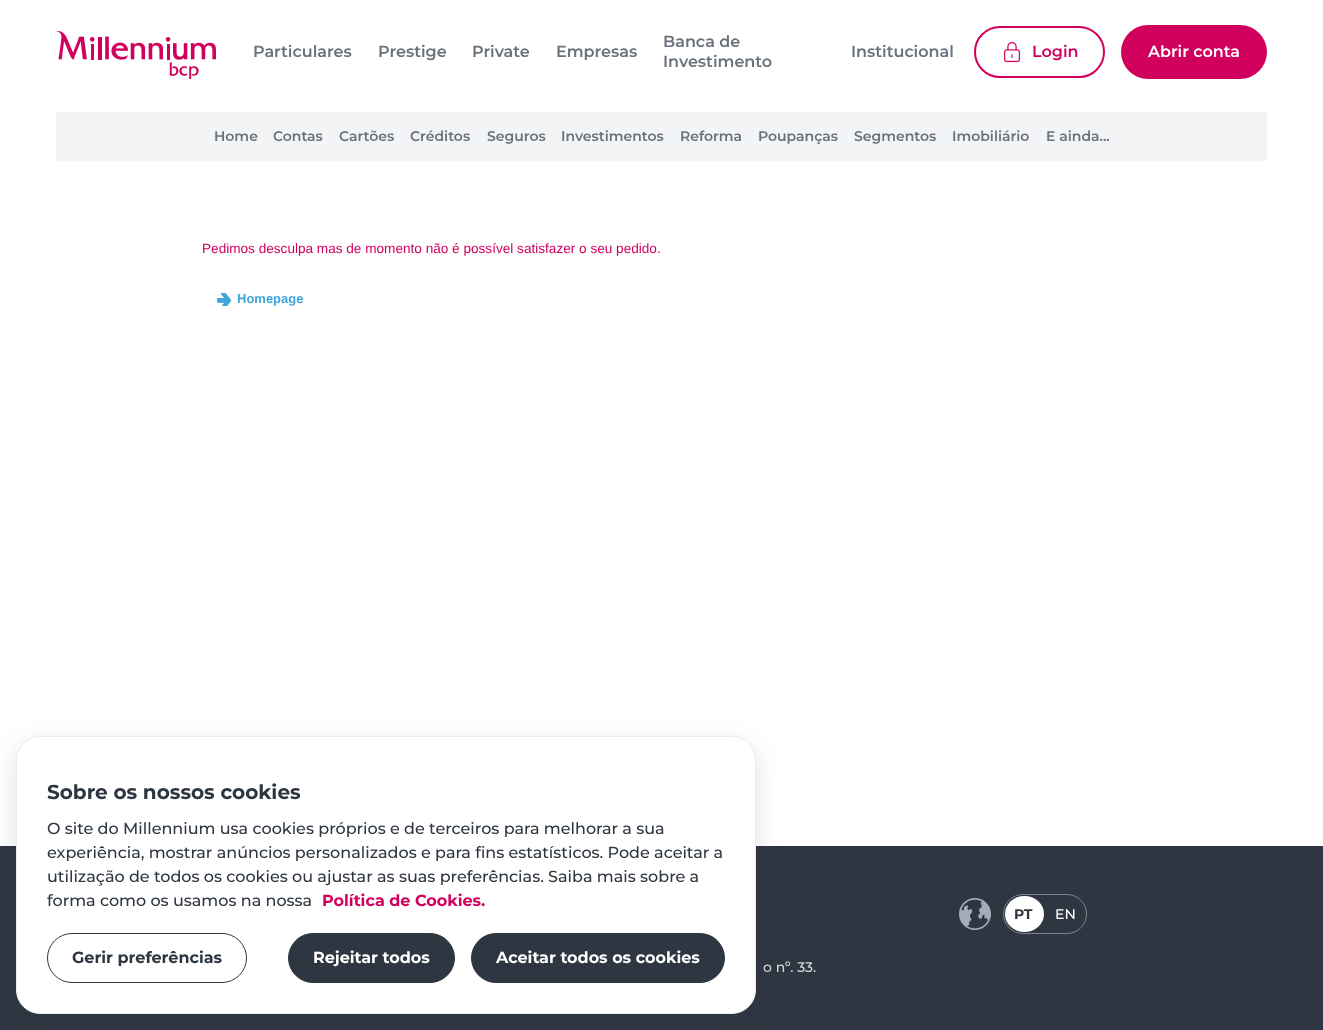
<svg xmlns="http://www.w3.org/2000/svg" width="1323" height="1030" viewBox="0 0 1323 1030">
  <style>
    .t1 { font: 600 16px Montserrat; fill: #6a717c; }
    .t2 { font: 600 16px Montserrat; fill: #d1005d; }
    .t3 { font: 600 16px Montserrat; fill: #fff; }
    .t4 { font: 600 14px Montserrat; fill: #6a717c; }
    .t5 { font: 13.6px Liberation Sans; fill: #d1005d; }
    .t6 { font: bold 13px Liberation Sans; fill: #40a6d9; }
    .t7 { font: bold 14px Montserrat; fill: #2e3641; }
    .t8 { font: 500 14px Montserrat; fill: #fff; }
    .t9 { font: 500 14px Montserrat; fill: #d5d7d9; }
    .t10 { font: bold 20px Montserrat; fill: #2e3641; }
    .t11 { font: 500 16px Montserrat; fill: #2e3641; }
    .t12 { font: bold 16px Montserrat; fill: #d1005d; }
    .t13 { font: bold 16px Montserrat; fill: #2e3641; }
    .t14 { font: bold 16px Montserrat; fill: #fff; }
  </style>
  <rect width="100%" height="100%" fill="#fff"/>
  <image x="56" y="31" width="160" height="48" href="images/1.png"/>
  <text x="253" y="57" class="t1">Particulares</text>
  <text x="378" y="57" class="t1">Prestige</text>
  <text x="472" y="57" class="t1">Private</text>
  <text x="556" y="57" class="t1">Empresas</text>
  <text x="663" y="47" class="t1">Banca de</text>
  <text x="663" y="67" class="t1">Investimento</text>
  <text x="851" y="57" class="t1">Institucional</text>
  <image x="1004" y="42" width="16" height="21" href="images/2.png"/>
  <rect x="975" y="27" width="129" height="50" rx="25" fill="none" stroke="#d1005d" stroke-width="2"/>
  <text x="1032" y="57" class="t2">Login</text>
  <rect x="1121" y="25" width="146" height="54" rx="27" fill="#d1005d"/>
  <text x="1148" y="57" class="t3">Abrir conta</text>
  <rect x="56" y="112" width="1211" height="49" fill="#f3f4f6"/>
  <text x="214" y="141" class="t4">Home</text>
  <text x="273" y="141" class="t4">Contas</text>
  <text x="339" y="141" class="t4">Cartões</text>
  <text x="410" y="141" class="t4">Créditos</text>
  <text x="487" y="141" class="t4">Seguros</text>
  <text x="561" y="141" class="t4">Investimentos</text>
  <text x="680" y="141" class="t4">Reforma</text>
  <text x="758" y="141" class="t4">Poupanças</text>
  <text x="854" y="141" class="t4">Segmentos</text>
  <text x="952" y="141" class="t4">Imobiliário</text>
  <text x="1046" y="141" class="t4">E ainda...</text>
  <text x="202" y="253" class="t5">Pedimos desculpa mas de momento não é possível satisfazer o seu pedido.</text>
  <image x="217" y="293" width="14" height="13" href="images/3.png"/>
  <text x="237" y="303" class="t6">Homepage</text>
  <rect x="0" y="846" width="1323" height="184" fill="#2e3641"/>
  <image x="959" y="898" width="32" height="32" href="images/4.png"/>
  <rect x="1003.5" y="894.5" width="83" height="39" rx="19.5" fill="none" stroke="#80838f"/>
  <ellipse cx="1024.5" cy="914" rx="19.5" ry="18" fill="#fff"/>
  <text x="1014" y="919" class="t7">PT</text>
  <text x="1055" y="919" class="t8">EN</text>
  <text x="763" y="972" class="t9">o nº. 33.</text>
  <rect x="16" y="744" width="740" height="278" rx="24" fill="#2e364126" filter="blur(12px)"/>
  <rect x="16.5" y="736.5" width="739" height="277" rx="23.5" fill="#fff" stroke="#e9eaf2"/>
  <text x="47" y="799" class="t10">Sobre os nossos cookies</text>
  <text x="47" y="834" class="t11">O site do Millennium usa cookies próprios e de terceiros para melhorar a sua</text>
  <text x="47" y="858" class="t11">experiência, mostrar anúncios personalizados e para fins estatísticos. Pode aceitar a</text>
  <text x="47" y="882" class="t11">utilização de todos os cookies ou ajustar as suas preferências. Saiba mais sobre a</text>
  <text x="47" y="906" class="t11">forma como os usamos na nossa</text>
  <text x="322" y="906" class="t12">Política de Cookies.</text>
  <rect x="47.5" y="933.5" width="199" height="49" rx="24.5" fill="none" stroke="#2e3641"/>
  <text x="72" y="963" class="t13">Gerir preferências</text>
  <rect x="288.5" y="933.5" width="166" height="49" rx="24.5" fill="#2e3641" stroke="#2e3641"/>
  <text x="313" y="963" class="t14">Rejeitar todos</text>
  <rect x="471.5" y="933.5" width="253" height="49" rx="24.5" fill="#2e3641" stroke="#2e3641"/>
  <text x="496" y="963" class="t14">Aceitar todos os cookies</text>
</svg>
